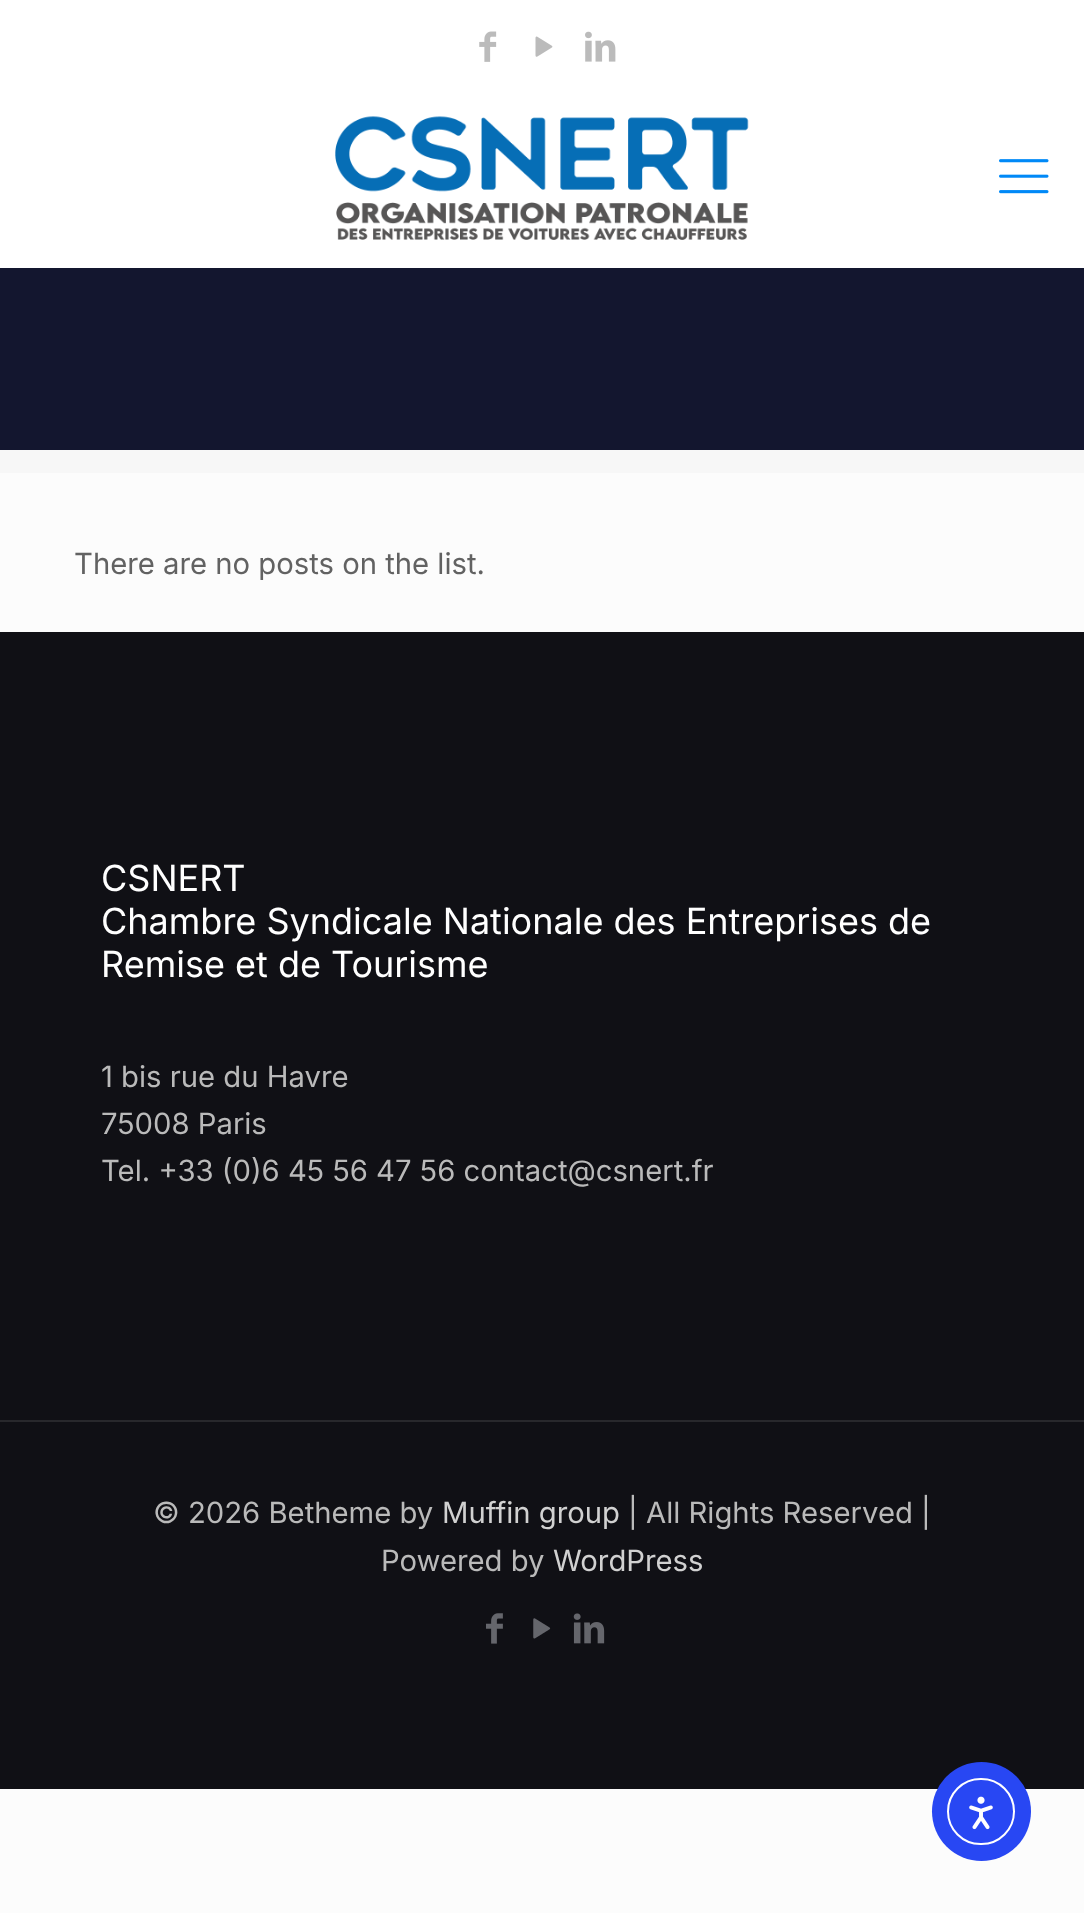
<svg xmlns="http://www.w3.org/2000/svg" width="1084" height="1913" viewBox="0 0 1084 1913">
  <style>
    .t1 { font: 29.25px Inter; fill: #626262; }
    .t2 { font: 36px Inter; fill: #fff; }
    .t3 { font: 29.25px Inter; fill: #bababa; }
    .t4 { font: 29.25px Inter; fill: #d1d1d1; }
  </style>
  <rect width="100%" height="100%" fill="#fcfcfc"/>
  <rect x="0" y="268" width="1084" height="182" fill="#13162f"/>
  <rect x="0" y="0" width="1084" height="268" fill="#fff"/>
  <image x="479" y="31" width="18" height="31" href="images/1.png"/>
  <image x="535" y="36" width="18" height="21" href="images/2.png"/>
  <image x="585" y="31" width="31" height="31" href="images/3.png"/>
  <image x="335" y="116" width="414" height="124" href="images/4.png"/>
  <image x="999" y="159" width="50" height="35" href="images/5.png"/>
  <rect x="0" y="450" width="1084" height="23" fill="#f7f7f7"/>
  <text x="74" y="574" class="t1">There are no posts on the list.</text>
  <rect x="0" y="632" width="1084" height="1157" fill="#101015"/>
  <text x="101" y="891" class="t2">CSNERT</text>
  <text x="101" y="934" class="t2">Chambre Syndicale Nationale des Entreprises de</text>
  <text x="101" y="977" class="t2">Remise et de Tourisme</text>
  <text x="101" y="1087" class="t3">1 bis rue du Havre</text>
  <text x="101" y="1134" class="t3">75008 Paris</text>
  <text x="101" y="1181" class="t3">Tel. +33 (0)6 45 56 47 56 contact@csnert.fr</text>
  <rect x="0" y="1420" width="1084" height="2" fill="#28282c"/>
  <text x="153" y="1523" class="t3">© 2026 Betheme by</text>
  <text x="442" y="1523" class="t4">Muffin group</text>
  <text x="628" y="1523" class="t3">| All Rights Reserved |</text>
  <text x="381" y="1571" class="t3">Powered by</text>
  <text x="553" y="1571" class="t4">WordPress</text>
  <image x="486" y="1613" width="17" height="31" href="images/6.png"/>
  <image x="533" y="1618" width="18" height="21" href="images/7.png"/>
  <image x="573" y="1613" width="32" height="31" href="images/8.png"/>
  <circle cx="981.5" cy="1811.5" r="49.5" fill="#2847f3"/>
  <rect x="948" y="1779" width="66" height="65" rx="32.5" fill="none" stroke="#fff" stroke-width="2"/>
  <image x="969" y="1796" width="24" height="34" href="images/9.png"/>
</svg>
